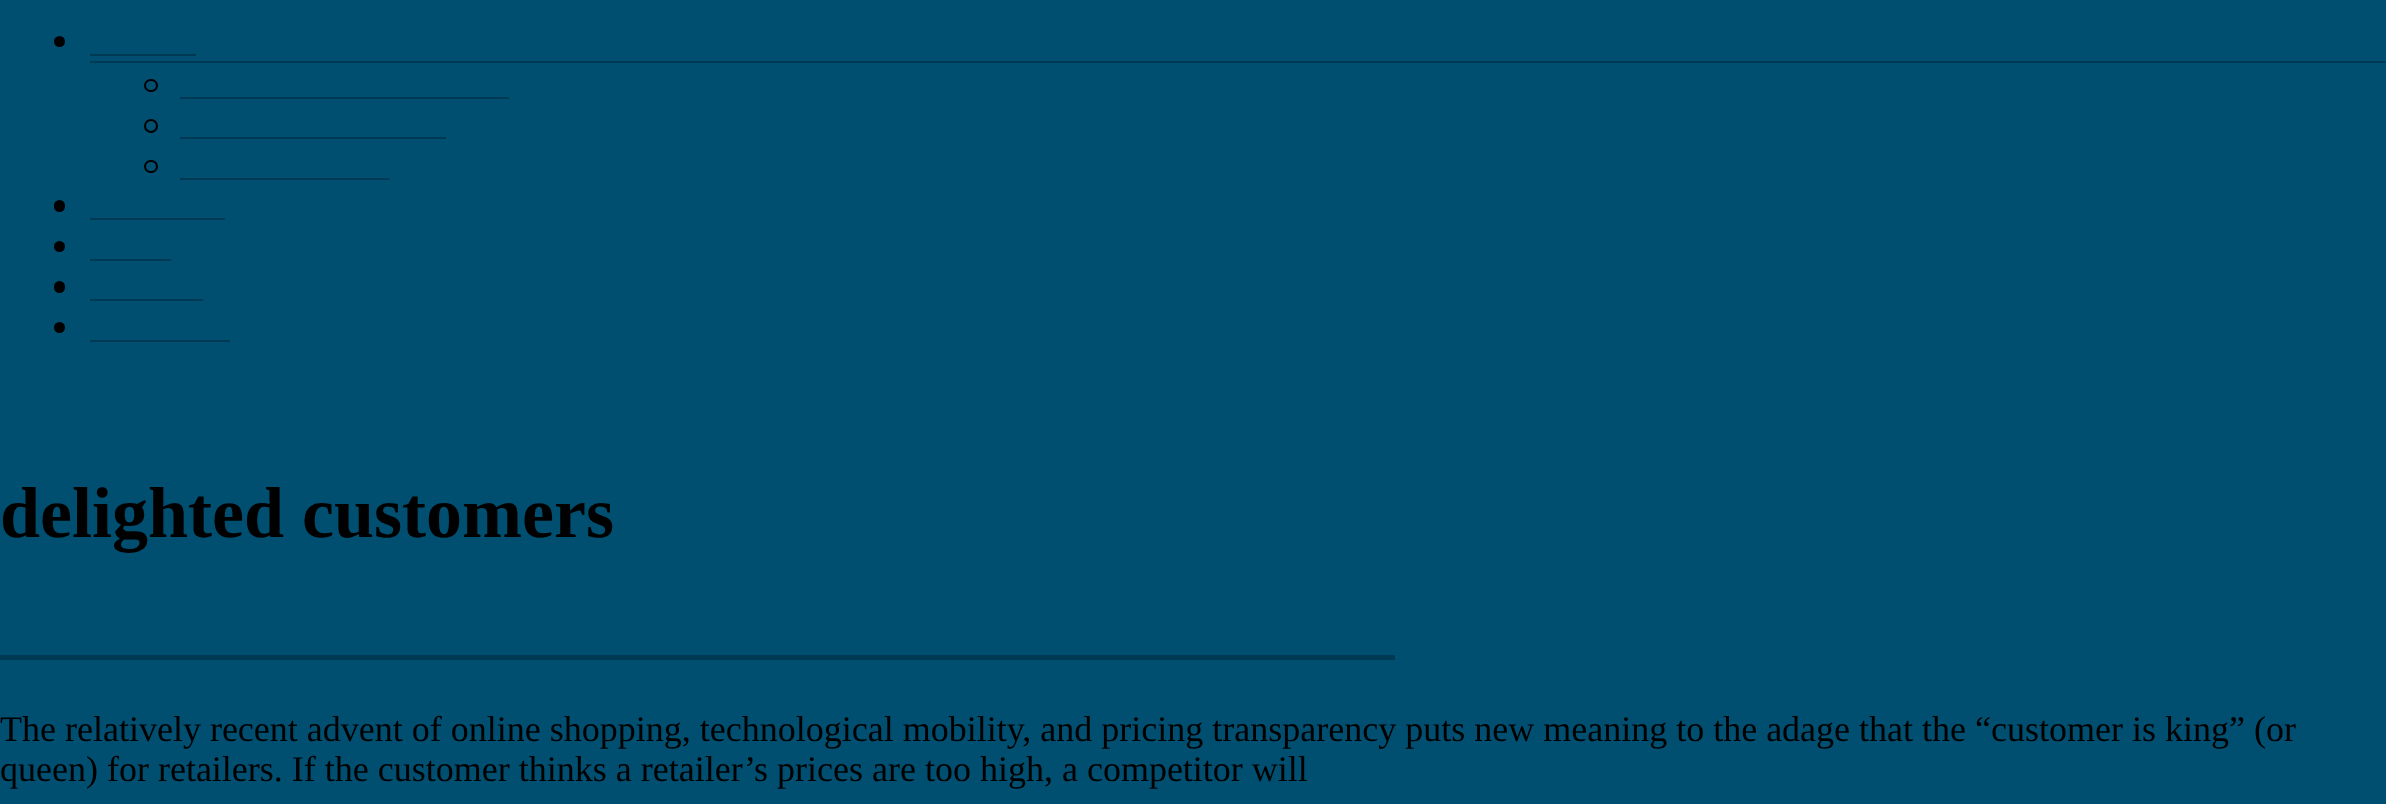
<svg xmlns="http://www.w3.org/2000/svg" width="2386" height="804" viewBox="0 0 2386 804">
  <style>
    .t1 { font: bold 72px Liberation Serif; fill: #000; }
    .t2 { font: 36px Liberation Serif; fill: #000; }
  </style>
  <rect width="100%" height="100%" fill="#004e70"/>
  <circle cx="59.5" cy="41.5" r="5.5" fill="#000"/>
  <rect x="90" y="54" width="106" height="2" fill="#003954"/>
  <rect x="90" y="61" width="2296" height="2" fill="#003954"/>
  <rect x="145" y="80" width="12" height="11" rx="5.5" fill="none" stroke="#000" stroke-width="2"/>
  <rect x="180" y="97" width="329" height="2" fill="#003954"/>
  <circle cx="151" cy="126" r="6" fill="none" stroke="#000" stroke-width="2"/>
  <rect x="180" y="137" width="266" height="2" fill="#003954"/>
  <rect x="145" y="161" width="12" height="11" rx="5.5" fill="none" stroke="#000" stroke-width="2"/>
  <rect x="180" y="178" width="209" height="2" fill="#003954"/>
  <rect x="54" y="200" width="11" height="12" rx="5.5" fill="#000"/>
  <rect x="90" y="218" width="135" height="2" fill="#003954"/>
  <circle cx="59.5" cy="246.5" r="5.5" fill="#000"/>
  <rect x="90" y="259" width="81" height="2" fill="#003954"/>
  <rect x="54" y="281" width="11" height="12" rx="5.5" fill="#000"/>
  <rect x="90" y="299" width="113" height="2" fill="#003954"/>
  <circle cx="59.5" cy="327.5" r="5.5" fill="#000"/>
  <rect x="90" y="340" width="140" height="2" fill="#003954"/>
  <text x="0" y="537" class="t1">delighted customers</text>
  <rect x="0" y="655" width="1395" height="5" fill="#003954"/>
  <text x="0" y="741" class="t2">The relatively recent advent of online shopping, technological mobility, and pricing transparency puts new meaning to the adage that the “customer is king” (or</text>
  <text x="0" y="781" class="t2">queen) for retailers. If the customer thinks a retailer’s prices are too high, a competitor will</text>
</svg>
